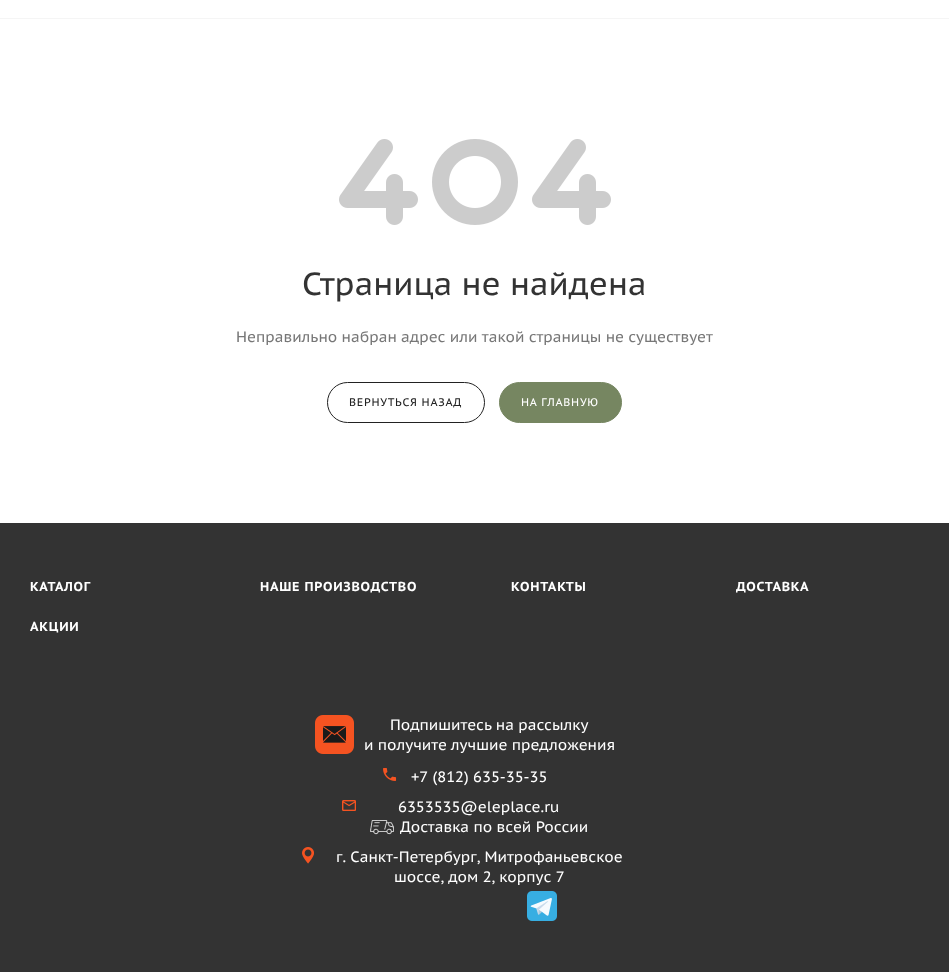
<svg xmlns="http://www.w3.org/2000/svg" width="949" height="972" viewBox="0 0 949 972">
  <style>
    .t1 { font: 32px PT Sans Caption; fill: #333; }
    .t2 { font: 15px PT Sans Caption; fill: #777; }
    .t3 { font: 11px PT Sans Caption; letter-spacing: 0.75px; fill: #222; }
    .t4 { font: 11px PT Sans Caption; letter-spacing: 0.75px; fill: #fff; }
    .t5 { font: bold 13px PT Sans Caption; letter-spacing: 0.75px; fill: #fff; }
    .t6 { font: 15px PT Sans Caption; fill: #fff; }
  </style>
  <rect width="100%" height="100%" fill="#fff"/>
  <rect x="0" y="18" width="949" height="1" fill="#f5f5f5"/>
  <image x="339" y="139" width="272" height="86" href="images/1.png"/>
  <text x="302" y="295" class="t1">Страница не найдена</text>
  <text x="236" y="342" class="t2">Неправильно набран адрес или такой страницы не существует</text>
  <rect x="327.5" y="382.5" width="157" height="40" rx="20" fill="none" stroke="#222"/>
  <text x="349" y="406" class="t3">ВЕРНУТЬСЯ НАЗАД</text>
  <rect x="499.5" y="382.5" width="122" height="40" rx="20" fill="#768661" stroke="#768661"/>
  <text x="521" y="406" class="t4">НА ГЛАВНУЮ</text>
  <rect x="0" y="523" width="949" height="449" fill="#333"/>
  <text x="30" y="591" class="t5">КАТАЛОГ</text>
  <text x="30" y="631" class="t5">АКЦИИ</text>
  <text x="260" y="591" class="t5">НАШЕ ПРОИЗВОДСТВО</text>
  <text x="511" y="591" class="t5">КОНТАКТЫ</text>
  <text x="736" y="591" class="t5">ДОСТАВКА</text>
  <image x="315" y="715" width="39" height="39" href="images/2.png"/>
  <text x="390" y="730" class="t6">Подпишитесь на рассылку</text>
  <text x="364" y="750" class="t6">и получите лучшие предложения</text>
  <image x="383" y="768" width="14" height="13" href="images/3.png"/>
  <text x="411" y="782" class="t6">+7 (812) 635-35-35</text>
  <image x="342" y="800" width="14" height="11" href="images/4.png"/>
  <text x="398" y="812" class="t6">6353535@eleplace.ru</text>
  <image x="370" y="820" width="24" height="15" href="images/5.png"/>
  <text x="400" y="832" class="t6">Доставка по всей России</text>
  <image x="302" y="847" width="12" height="17" href="images/6.png"/>
  <text x="336" y="862" class="t6">г. Санкт-Петербург, Митрофаньевское</text>
  <text x="394" y="882" class="t6">шоссе, дом 2, корпус 7</text>
  <image x="527" y="891" width="30" height="30" href="images/7.png"/>
</svg>
